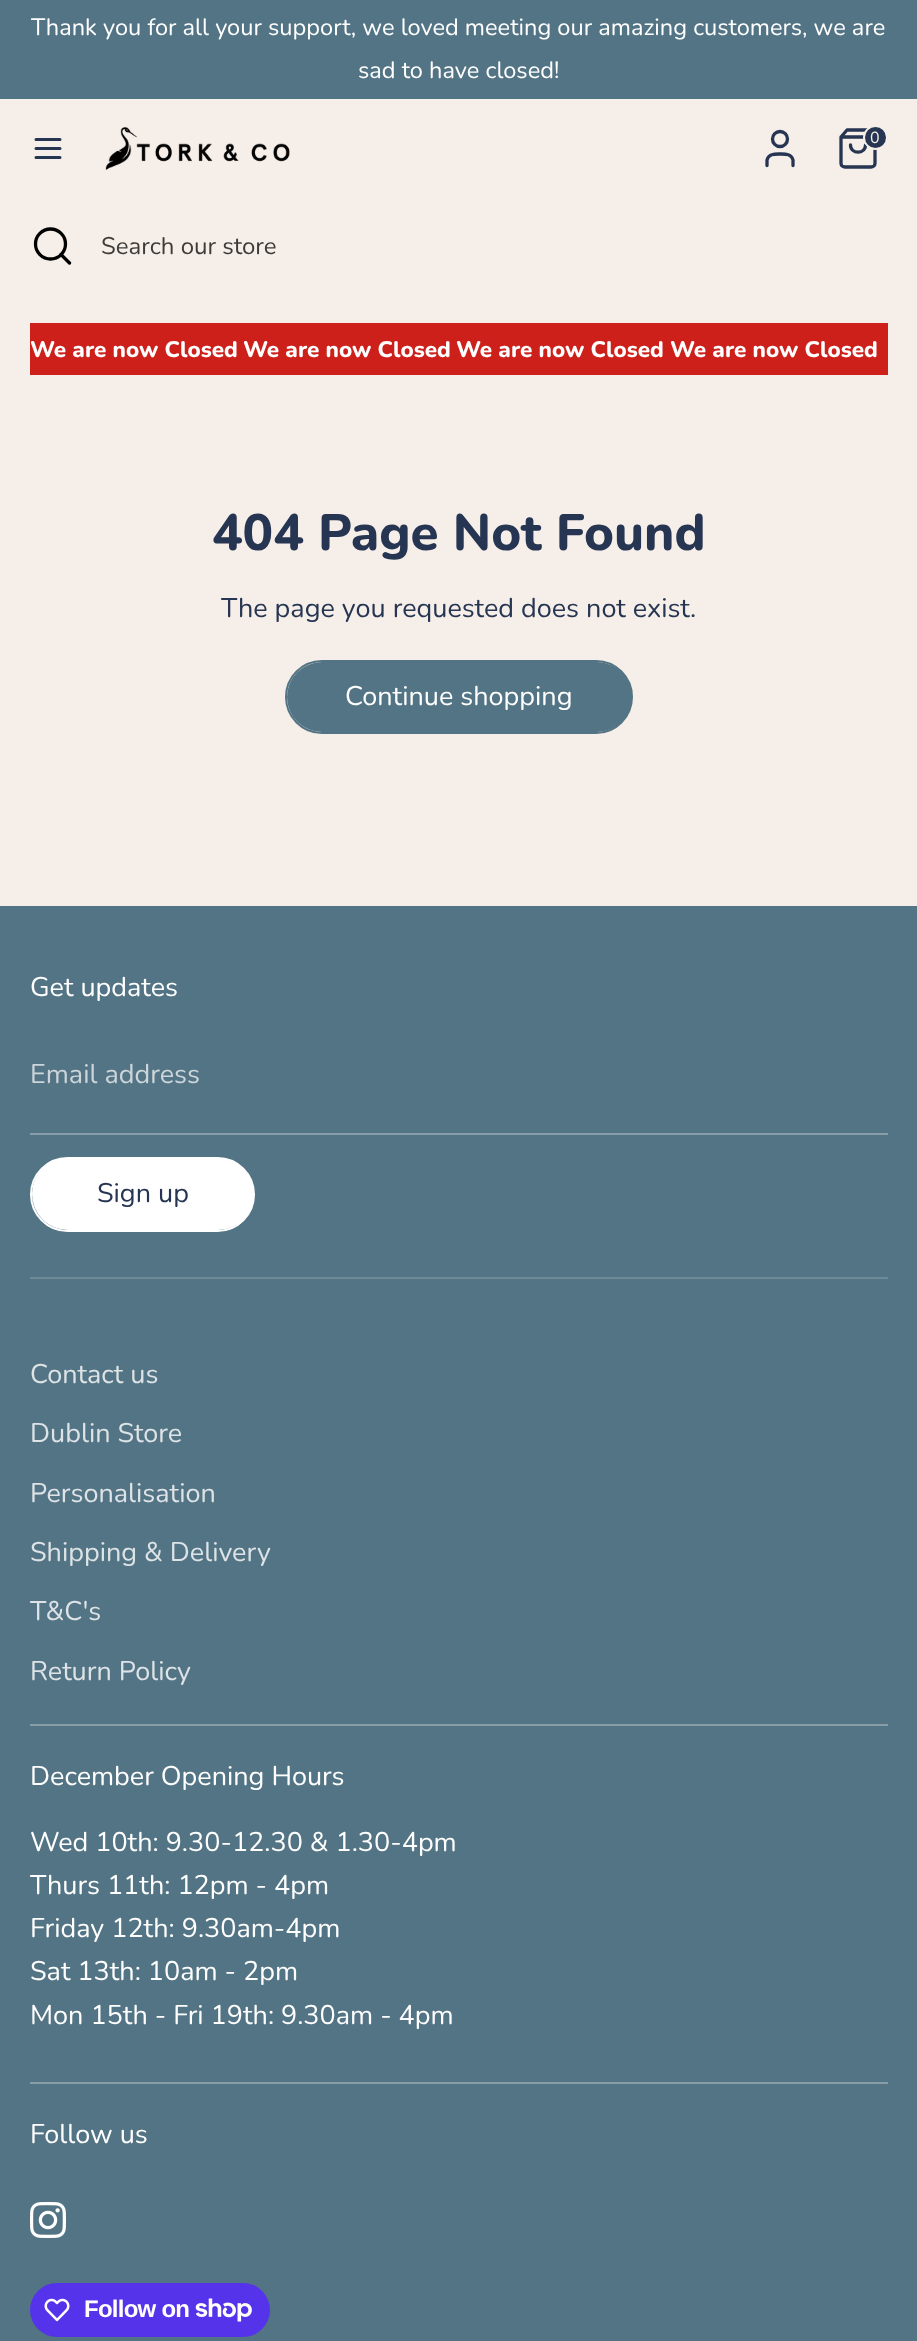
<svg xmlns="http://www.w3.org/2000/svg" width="917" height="2341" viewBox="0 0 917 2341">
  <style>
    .t1 { font: 23.6px Nunito; fill: #fff; }
    .t2 { font: 16px Nunito; fill: #f6eee8; }
    .t3 { font: 24px Nunito; fill: #3e3c3a; }
    .t4 { font: 800 22.5px Nunito; fill: #fff; }
    .t5 { font: 800 51px Nunito; fill: #263552; }
    .t6 { font: 27px Nunito; fill: #263552; }
    .t7 { font: 27px Nunito; fill: #fff; }
    .t8 { font: 27px Nunito; fill: #cbd5da; }
    .t9 { font: 27px Nunito; fill: #dde3e6; }
    .t10 { font: bold 24px Liberation Sans; letter-spacing: -0.75px; fill: #fff; }
  </style>
  <rect width="100%" height="100%" fill="#f6eee8"/>
  <rect x="0" y="0" width="917" height="99" fill="#537484"/>
  <text x="31" y="35" class="t1">Thank you for all your support, we loved meeting our amazing customers, we are</text>
  <text x="358" y="78" class="t1">sad to have closed!</text>
  <path d="M36 148.5H60M36 139.5H60M36 157.5H60" fill="none" stroke="#263552" stroke-width="3" stroke-linecap="round" stroke-linejoin="round"/>
  <image x="105" y="127" width="185" height="43" href="images/1.png"/>
  <path d="M793 165.5V160C791.5 153.5 785 154 780 154C775 154 768.5 153.5 767 160V165.5" fill="none" stroke="#263552" stroke-width="3.3" stroke-linecap="round" stroke-linejoin="round"/>
  <circle cx="780" cy="139" r="7.5" fill="none" stroke="#263552" stroke-width="3.3"/>
  <path d="M847 130L841 137V163.5C841 165.5 843 167 845 167H871C873 167 875 165.5 875 163.5V137L869 130ZM841 137H875M865.5 145C865.5 154.5 850.5 154.5 850.5 145" fill="none" stroke="#263552" stroke-width="3.3" stroke-linecap="round" stroke-linejoin="round"/>
  <circle cx="875.5" cy="137.5" r="11.5" fill="#263552" stroke="#f6eee8" stroke-width="2"/>
  <text x="870" y="143" class="t2">0</text>
  <circle cx="50.5" cy="244" r="15" fill="none" stroke="#000" stroke-width="3.3"/>
  <path d="M69.5 263L61 254.5" fill="none" stroke="#000" stroke-width="3.3" stroke-linecap="round" stroke-linejoin="round"/>
  <text x="101" y="254" class="t3">Search our store</text>
  <rect x="30" y="323" width="858" height="52" fill="#cd201a"/>
  <text x="30" y="357" class="t4">We are now Closed</text>
  <text x="243" y="357" class="t4">We are now Closed</text>
  <text x="456" y="357" class="t4">We are now Closed</text>
  <text x="670" y="357" class="t4">We are now Closed</text>
  <text x="212" y="550" class="t5">404 Page Not Found</text>
  <text x="221" y="617" class="t6">The page you requested does not exist.</text>
  <rect x="286" y="661" width="346" height="72" rx="36" fill="none" stroke="#537484" stroke-width="2"/>
  <rect x="287" y="662" width="345" height="70" rx="35" fill="#537484"/>
  <text x="345" y="705" class="t7">Continue shopping</text>
  <rect x="0" y="906" width="917" height="1435" fill="#537484"/>
  <text x="30" y="996" class="t7">Get updates</text>
  <rect x="30" y="1133" width="858" height="2" fill="#879ea9"/>
  <text x="30" y="1083" class="t8">Email address</text>
  <rect x="31" y="1158" width="223" height="73" rx="36.5" fill="none" stroke="#fff" stroke-width="2"/>
  <rect x="32" y="1158" width="222" height="72" rx="36" fill="#fff"/>
  <text x="97" y="1202" class="t6">Sign up</text>
  <rect x="30" y="1277" width="858" height="2" fill="#6d8996"/>
  <rect x="30" y="1724" width="858" height="2" fill="#879ea9"/>
  <text x="30" y="1383" class="t9">Contact us</text>
  <text x="30" y="1442" class="t9">Dublin Store</text>
  <text x="30" y="1502" class="t9">Personalisation</text>
  <text x="30" y="1561" class="t9">Shipping &amp; Delivery</text>
  <text x="30" y="1620" class="t9">T&amp;C's</text>
  <text x="30" y="1680" class="t9">Return Policy</text>
  <rect x="30" y="2082" width="858" height="2" fill="#879ea9"/>
  <text x="30" y="1785" class="t7">December Opening Hours</text>
  <text x="30" y="1851" class="t7">Wed 10th: 9.30-12.30 &amp; 1.30-4pm</text>
  <text x="30" y="1894" class="t7">Thurs 11th: 12pm - 4pm</text>
  <text x="30" y="1937" class="t7">Friday 12th: 9.30am-4pm</text>
  <text x="30" y="1980" class="t7">Sat 13th: 10am - 2pm</text>
  <text x="30" y="2024" class="t7">Mon 15th - Fri 19th: 9.30am - 4pm</text>
  <text x="30" y="2143" class="t7">Follow us</text>
  <image x="30" y="2202" width="36" height="36" href="images/2.png"/>
  <rect x="30" y="2283" width="240" height="54" rx="27" fill="#5433eb"/>
  <image x="44" y="2298" width="26" height="24" href="images/3.png"/>
  <text x="84" y="2317" class="t10">Follow on</text>
  <image x="195" y="2298" width="57" height="24" href="images/4.png"/>
</svg>
